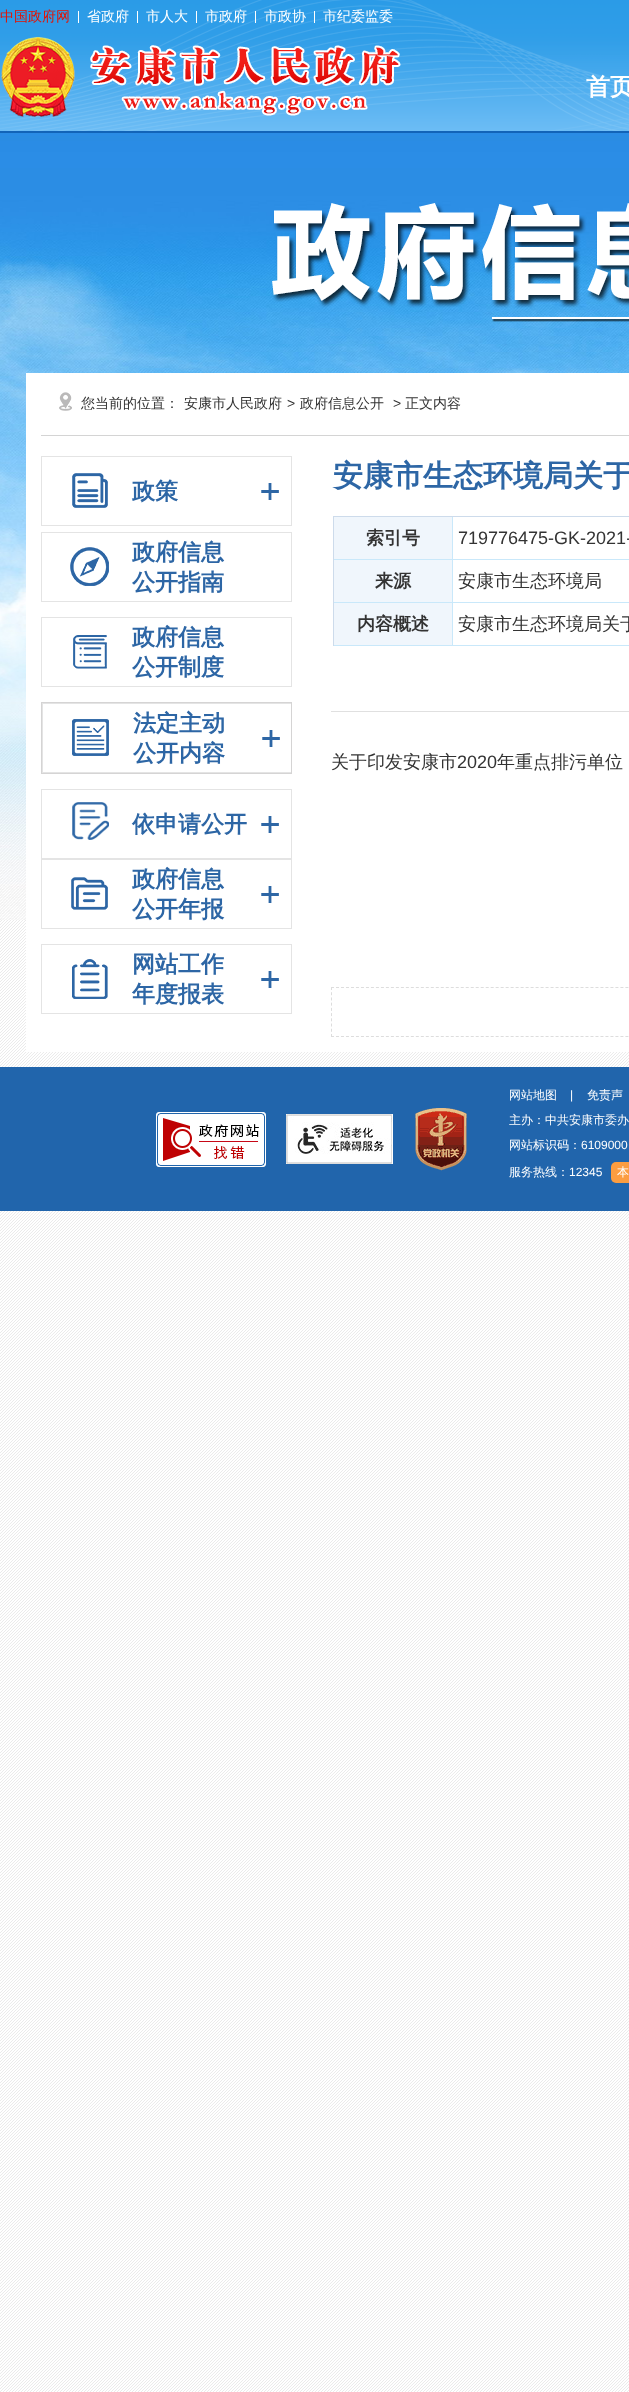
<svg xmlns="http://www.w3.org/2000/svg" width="629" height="2392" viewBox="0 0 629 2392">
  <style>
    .t1 { font: 500 14px WenQuanYi Zen Hei; fill: #e61101; }
    .t2 { font: 500 14px WenQuanYi Zen Hei; fill: #fff; }
    .t3 { font: bold 24px WenQuanYi Zen Hei; fill: #fff; }
    .t4 { font: 500 14px WenQuanYi Zen Hei; fill: #333; }
    .t5 { font: 14px Liberation Sans; fill: #333; }
    .t6 { font: bold 23px WenQuanYi Zen Hei; fill: #2d66a5; }
    .t7 { font: bold 30px WenQuanYi Zen Hei; fill: #2d66a5; }
    .t8 { font: bold 18px WenQuanYi Zen Hei; fill: #333; }
    .t9 { font: 18px Liberation Sans; fill: #333; }
    .t10 { font: 500 18px WenQuanYi Zen Hei; fill: #333; }
    .t11 { font: 500 12px WenQuanYi Zen Hei; fill: #fff; }
    .t12 { font: 12px Liberation Sans; fill: #fff; }
  </style>
  <defs>
    <clipPath id="clip1"><rect x="42" y="703" width="249" height="70"/></clipPath>
  </defs>
  <rect width="100%" height="100%" fill="#fff"/>
  <image x="0" y="133" width="629" height="2259" href="images/1.png"/>
  <image x="0" y="0" width="629" height="131" href="images/2.png"/>
  <rect x="0" y="131" width="629" height="2" fill="#1264b8"/>
  <text x="0" y="21" class="t1">中国政府网</text>
  <rect x="78" y="11" width="1" height="12" fill="#fff"/>
  <text x="87" y="21" class="t2">省政府</text>
  <rect x="137" y="11" width="1" height="12" fill="#fff"/>
  <text x="146" y="21" class="t2">市人大</text>
  <rect x="196" y="11" width="1" height="12" fill="#fff"/>
  <text x="205" y="21" class="t2">市政府</text>
  <rect x="255" y="11" width="1" height="12" fill="#fff"/>
  <text x="264" y="21" class="t2">市政协</text>
  <rect x="314" y="11" width="1" height="12" fill="#fff"/>
  <text x="323" y="21" class="t2">市纪委监委</text>
  <image x="1" y="37" width="400" height="80" href="images/3.png"/>
  <text x="586" y="95" class="t3">首页</text>
  <image x="272" y="203" width="357" height="119" href="images/4.png"/>
  <rect x="26" y="373" width="603" height="679" fill="#fff"/>
  <rect x="41" y="435" width="588" height="1" fill="#d4d4d4"/>
  <image x="59" y="392" width="13" height="19" href="images/5.png"/>
  <text x="81" y="408" class="t4">您当前的位置：</text>
  <text x="184" y="408" class="t4">安康市人民政府</text>
  <text x="287" y="408" class="t5">&gt;</text>
  <text x="300" y="408" class="t4">政府信息公开</text>
  <text x="393" y="408" class="t5">&gt;</text>
  <text x="405" y="408" class="t4">正文内容</text>
  <rect x="41.5" y="456.5" width="250" height="69" fill="none" stroke="#e4e4e4"/>
  <image x="72" y="473" width="36" height="35" href="images/6.png"/>
  <text x="132" y="499" class="t6">政策</text>
  <image x="261" y="483" width="18" height="17" href="images/7.png"/>
  <rect x="41.5" y="532.5" width="250" height="69" fill="none" stroke="#e4e4e4"/>
  <image x="70" y="547" width="39" height="39" href="images/8.png"/>
  <text x="132" y="560" class="t6">政府信息</text>
  <text x="132" y="590" class="t6">公开指南</text>
  <rect x="41.5" y="617.5" width="250" height="69" fill="none" stroke="#e4e4e4"/>
  <image x="73" y="635" width="34" height="34" href="images/9.png"/>
  <text x="132" y="645" class="t6">政府信息</text>
  <text x="132" y="675" class="t6">公开制度</text>
  <rect x="41.5" y="702.5" width="250" height="71" fill="none" stroke="#d5d4d4"/>
  <g clip-path="url(#clip1)">
    <rect x="42.5" y="703.5" width="250" height="69" fill="none" stroke="#e4e4e4"/>
  </g>
  <image x="72" y="719" width="37" height="37" href="images/10.png"/>
  <text x="133" y="731" class="t6">法定主动</text>
  <text x="133" y="761" class="t6">公开内容</text>
  <image x="262" y="730" width="18" height="17" href="images/7.png"/>
  <rect x="41.5" y="789.5" width="250" height="69" fill="none" stroke="#e4e4e4"/>
  <image x="72" y="802" width="37" height="38" href="images/11.png"/>
  <text x="132" y="832" class="t6">依申请公开</text>
  <image x="261" y="816" width="18" height="17" href="images/7.png"/>
  <rect x="41.5" y="859.5" width="250" height="69" fill="none" stroke="#e4e4e4"/>
  <image x="71" y="877" width="37" height="33" href="images/12.png"/>
  <text x="132" y="887" class="t6">政府信息</text>
  <text x="132" y="917" class="t6">公开年报</text>
  <image x="261" y="886" width="18" height="17" href="images/7.png"/>
  <rect x="41.5" y="944.5" width="250" height="69" fill="none" stroke="#e4e4e4"/>
  <image x="72" y="959" width="36" height="40" href="images/13.png"/>
  <text x="132" y="972" class="t6">网站工作</text>
  <text x="132" y="1002" class="t6">年度报表</text>
  <image x="261" y="971" width="18" height="17" href="images/7.png"/>
  <text x="333" y="486" class="t7">安康市生态环境局关于</text>
  <rect x="333" y="516" width="296" height="1" fill="#cddbeb"/>
  <rect x="333" y="516" width="1" height="130" fill="#cddbeb"/>
  <rect x="334" y="517" width="118" height="42" fill="#f0f6fc"/>
  <rect x="452" y="517" width="1" height="129" fill="#c9e8fa"/>
  <rect x="334" y="559" width="295" height="1" fill="#c9e8fa"/>
  <text x="366" y="544" class="t8">索引号</text>
  <text x="458" y="544" class="t9">719776475-GK-2021-</text>
  <rect x="334" y="560" width="118" height="42" fill="#f0f6fc"/>
  <rect x="334" y="602" width="295" height="1" fill="#c9e8fa"/>
  <text x="375" y="587" class="t8">来源</text>
  <text x="458" y="587" class="t10">安康市生态环境局</text>
  <rect x="334" y="603" width="118" height="42" fill="#f0f6fc"/>
  <rect x="334" y="645" width="295" height="1" fill="#c9e8fa"/>
  <text x="357" y="630" class="t8">内容概述</text>
  <text x="458" y="630" class="t10">安康市生态环境局关于</text>
  <rect x="331" y="711" width="298" height="1" fill="#e0e0e0"/>
  <text x="331" y="768" class="t10">关于印发安康市</text>
  <text x="457" y="768" class="t9">2020</text>
  <text x="497" y="768" class="t10">年重点排污单位</text>
  <path d="M331 987.5H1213" fill="none" stroke="#ddd" stroke-dasharray="3 1.99"/>
  <path d="M331 1036.5H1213" fill="none" stroke="#ddd" stroke-dasharray="3 1.99"/>
  <path d="M331.5 987V1037" fill="none" stroke="#ddd" stroke-dasharray="3 2.22"/>
  <rect x="0" y="1067" width="629" height="144" fill="#2165ac"/>
  <image x="156" y="1112" width="110" height="55" href="images/14.png"/>
  <image x="286" y="1114" width="107" height="50" href="images/15.png"/>
  <image x="415" y="1108" width="52" height="63" href="images/16.png"/>
  <text x="509" y="1099" class="t11">网站地图</text>
  <text x="570" y="1099" class="t12">|</text>
  <text x="587" y="1099" class="t11">免责声</text>
  <text x="509" y="1124" class="t11">主办：中共安康市委办</text>
  <text x="509" y="1149" class="t11">网站标识码：</text>
  <text x="581" y="1149" class="t12">6109000</text>
  <text x="509" y="1176" class="t11">服务热线：</text>
  <text x="569" y="1176" class="t12">12345</text>
  <rect x="611" y="1162" width="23" height="21" rx="5" fill="#fc9d41"/>
  <text x="617" y="1176" class="t11">本</text>
</svg>
